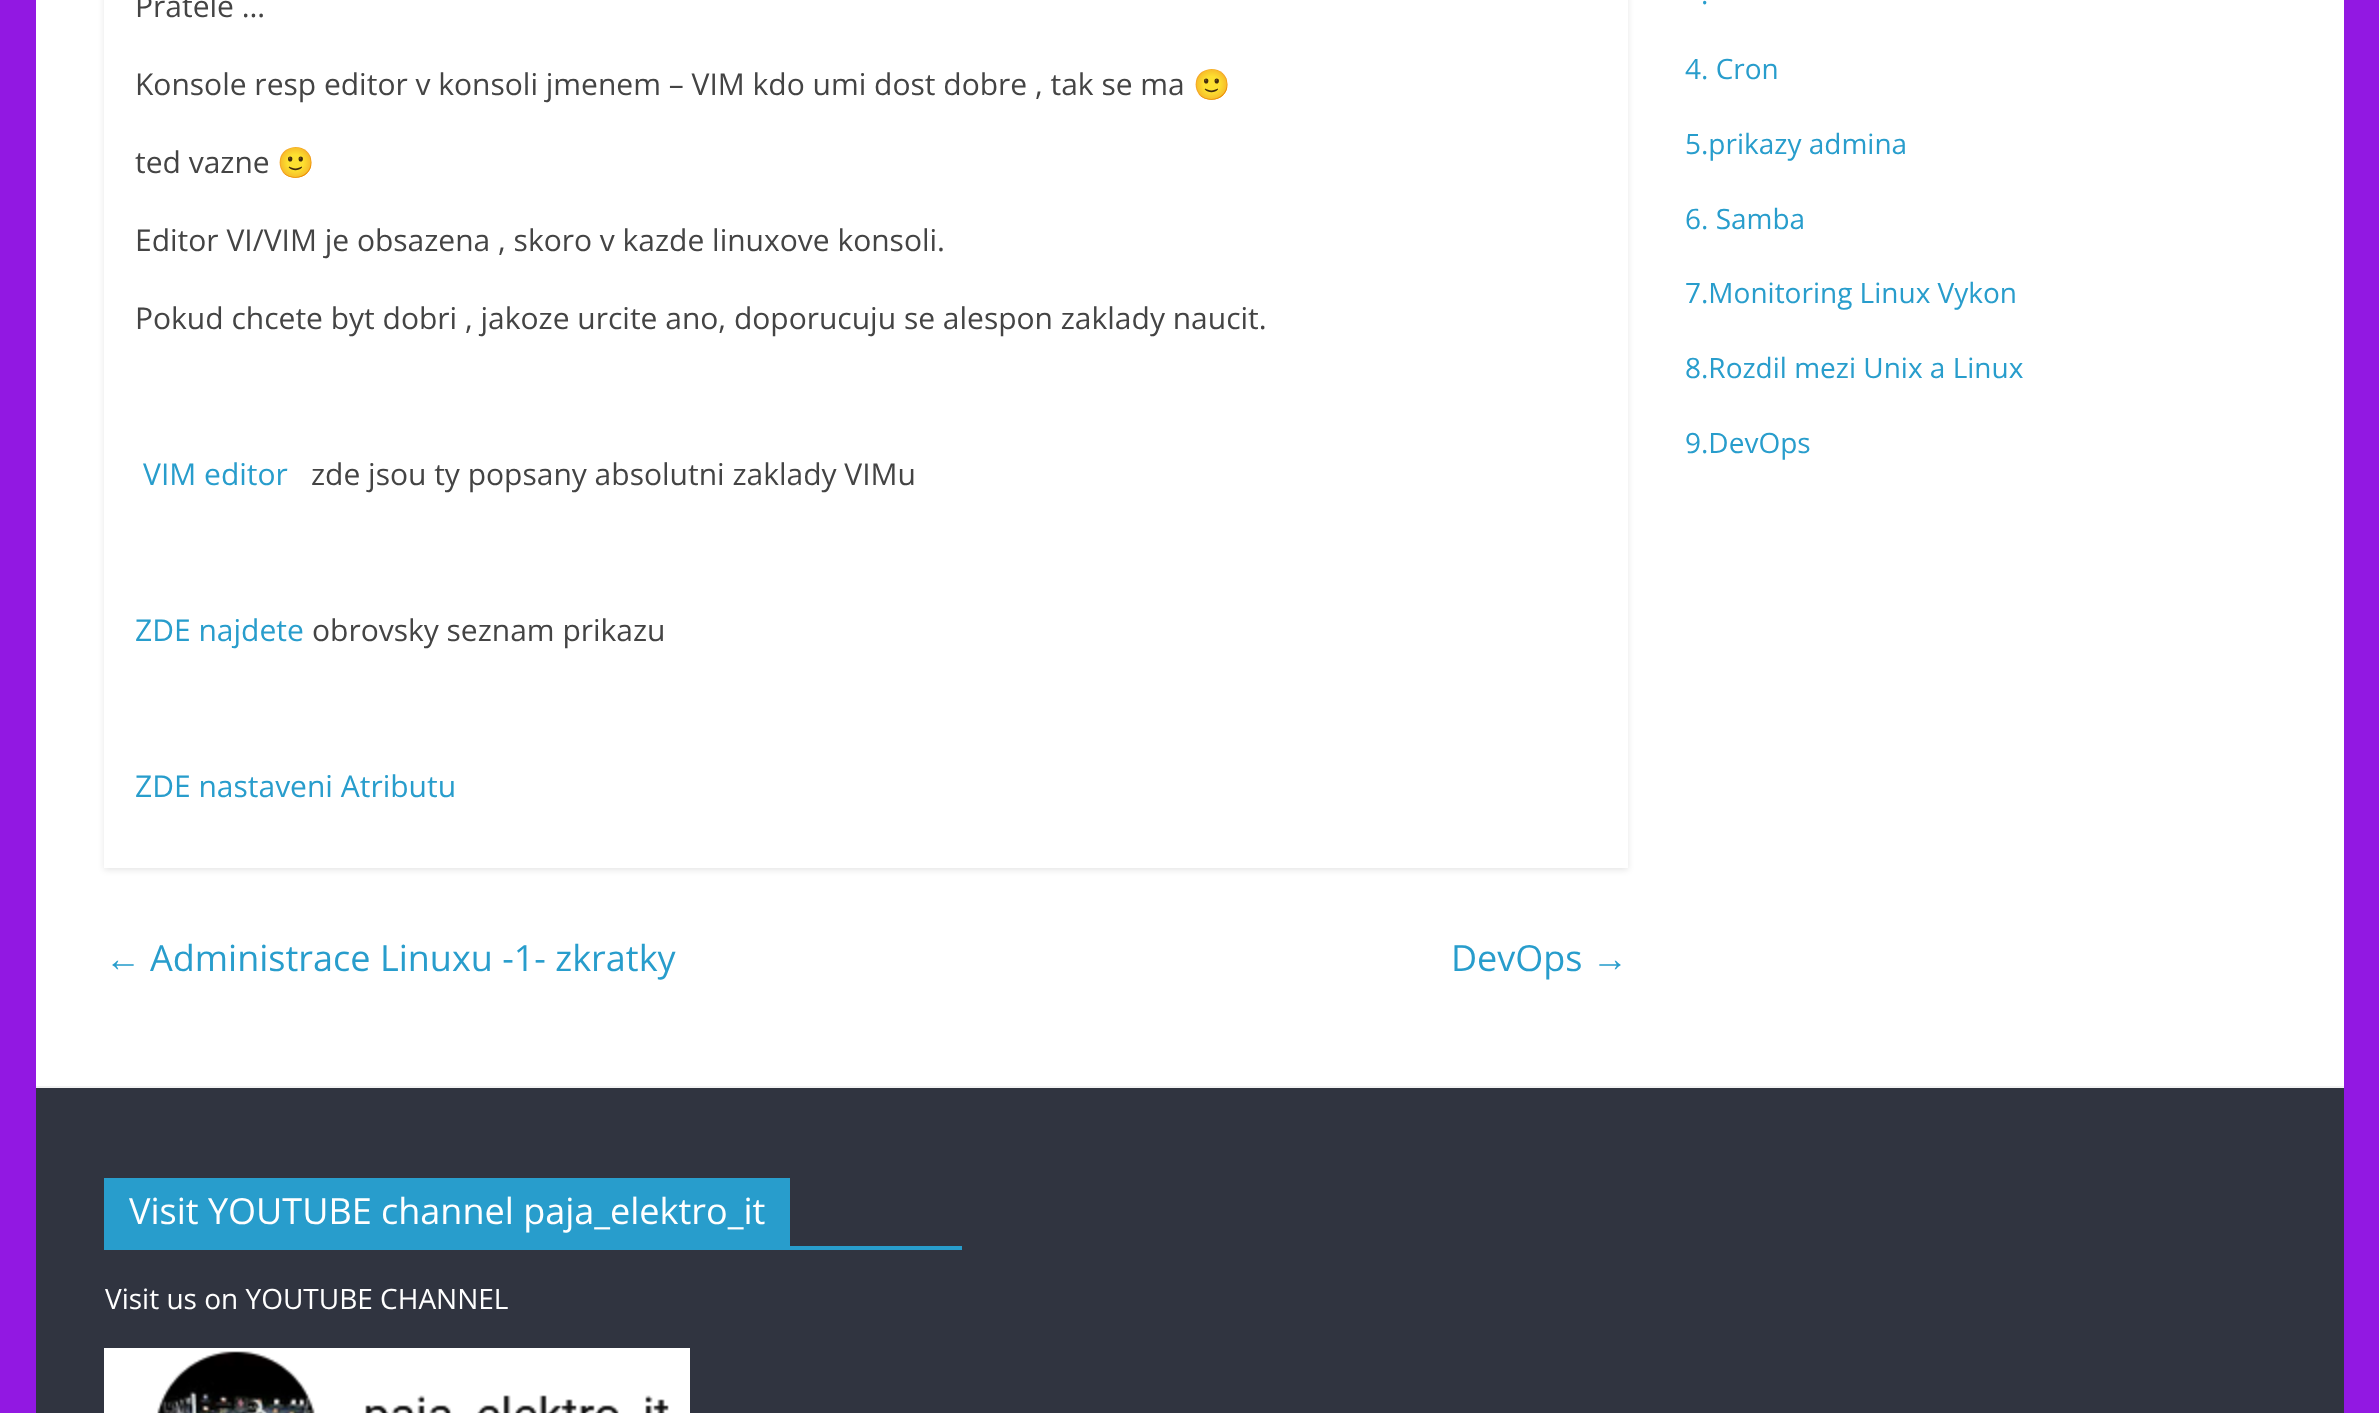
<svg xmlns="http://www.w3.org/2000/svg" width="2379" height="1413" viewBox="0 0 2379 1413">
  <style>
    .t1 { font: 30px Open Sans; fill: #444; }
    .t2 { font: 30px Noto Color Emoji; fill: #444; }
    .t3 { font: 30px Open Sans; fill: #289dcc; }
    .t4 { font: 36px Liberation Serif; fill: #289dcc; }
    .t5 { font: 36px Open Sans; fill: #289dcc; }
    .t6 { font: 28px Open Sans; fill: #289dcc; }
    .t7 { font: 36px Open Sans; fill: #fff; }
    .t8 { font: 28px Open Sans; fill: #fff; }
  </style>
  <defs>
    <clipPath id="clip1"><path d="M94 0H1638V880H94ZM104-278H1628V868H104Z" clip-rule="evenodd"/></clipPath>
  </defs>
  <rect width="100%" height="100%" fill="#9218e2"/>
  <rect x="36" y="0" width="2308" height="1086" fill="#fff"/>
  <g clip-path="url(#clip1)">
    <rect x="104" y="-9" width="1524" height="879" fill="#0000001a" filter="blur(3px)"/>
  </g>
  <text x="135" y="17" class="t1">Pratele …</text>
  <text x="135" y="95" class="t1">Konsole resp editor v konsoli jmenem – VIM kdo umi dost dobre , tak se ma</text>
  <text x="1193" y="95" class="t2">🙂</text>
  <text x="135" y="173" class="t1">ted vazne</text>
  <text x="277" y="173" class="t2">🙂</text>
  <text x="135" y="251" class="t1">Editor VI/VIM je obsazena , skoro v kazde linuxove konsoli.</text>
  <text x="135" y="329" class="t1">Pokud chcete byt dobri , jakoze urcite ano, doporucuju se alespon zaklady naucit.</text>
  <text x="143" y="485" class="t3">VIM editor</text>
  <text x="311" y="485" class="t1">zde jsou ty popsany absolutni zaklady VIMu</text>
  <text x="135" y="641" class="t3">ZDE najdete</text>
  <text x="312" y="641" class="t1">obrovsky seznam prikazu</text>
  <text x="135" y="797" class="t3">ZDE nastaveni Atributu</text>
  <text x="105" y="971" class="t4">←</text>
  <text x="150" y="971" class="t5">Administrace Linuxu -1- zkratky</text>
  <text x="1451" y="971" class="t5">DevOps</text>
  <text x="1592" y="971" class="t4">→</text>
  <text x="1701" y="4" class="t6">.</text>
  <text x="1685" y="79" class="t6">4. Cron</text>
  <text x="1685" y="154" class="t6">5.prikazy admina</text>
  <text x="1685" y="229" class="t6">6. Samba</text>
  <text x="1685" y="303" class="t6">7.Monitoring Linux Vykon</text>
  <text x="1685" y="378" class="t6">8.Rozdil mezi Unix a Linux</text>
  <text x="1685" y="453" class="t6">9.DevOps</text>
  <rect x="36" y="1088" width="2308" height="325" fill="#303440"/>
  <rect x="36" y="1086" width="2308" height="2" fill="#f2f2f2"/>
  <rect x="104" y="1246" width="858" height="4" fill="#289dcc"/>
  <rect x="104" y="1178" width="686" height="68" fill="#289dcc"/>
  <text x="129" y="1224" class="t7">Visit YOUTUBE channel paja_elektro_it</text>
  <text x="105" y="1309" class="t8">Visit us on YOUTUBE CHANNEL</text>
  <image x="104" y="1348" width="586" height="65" href="images/1.png"/>
</svg>
